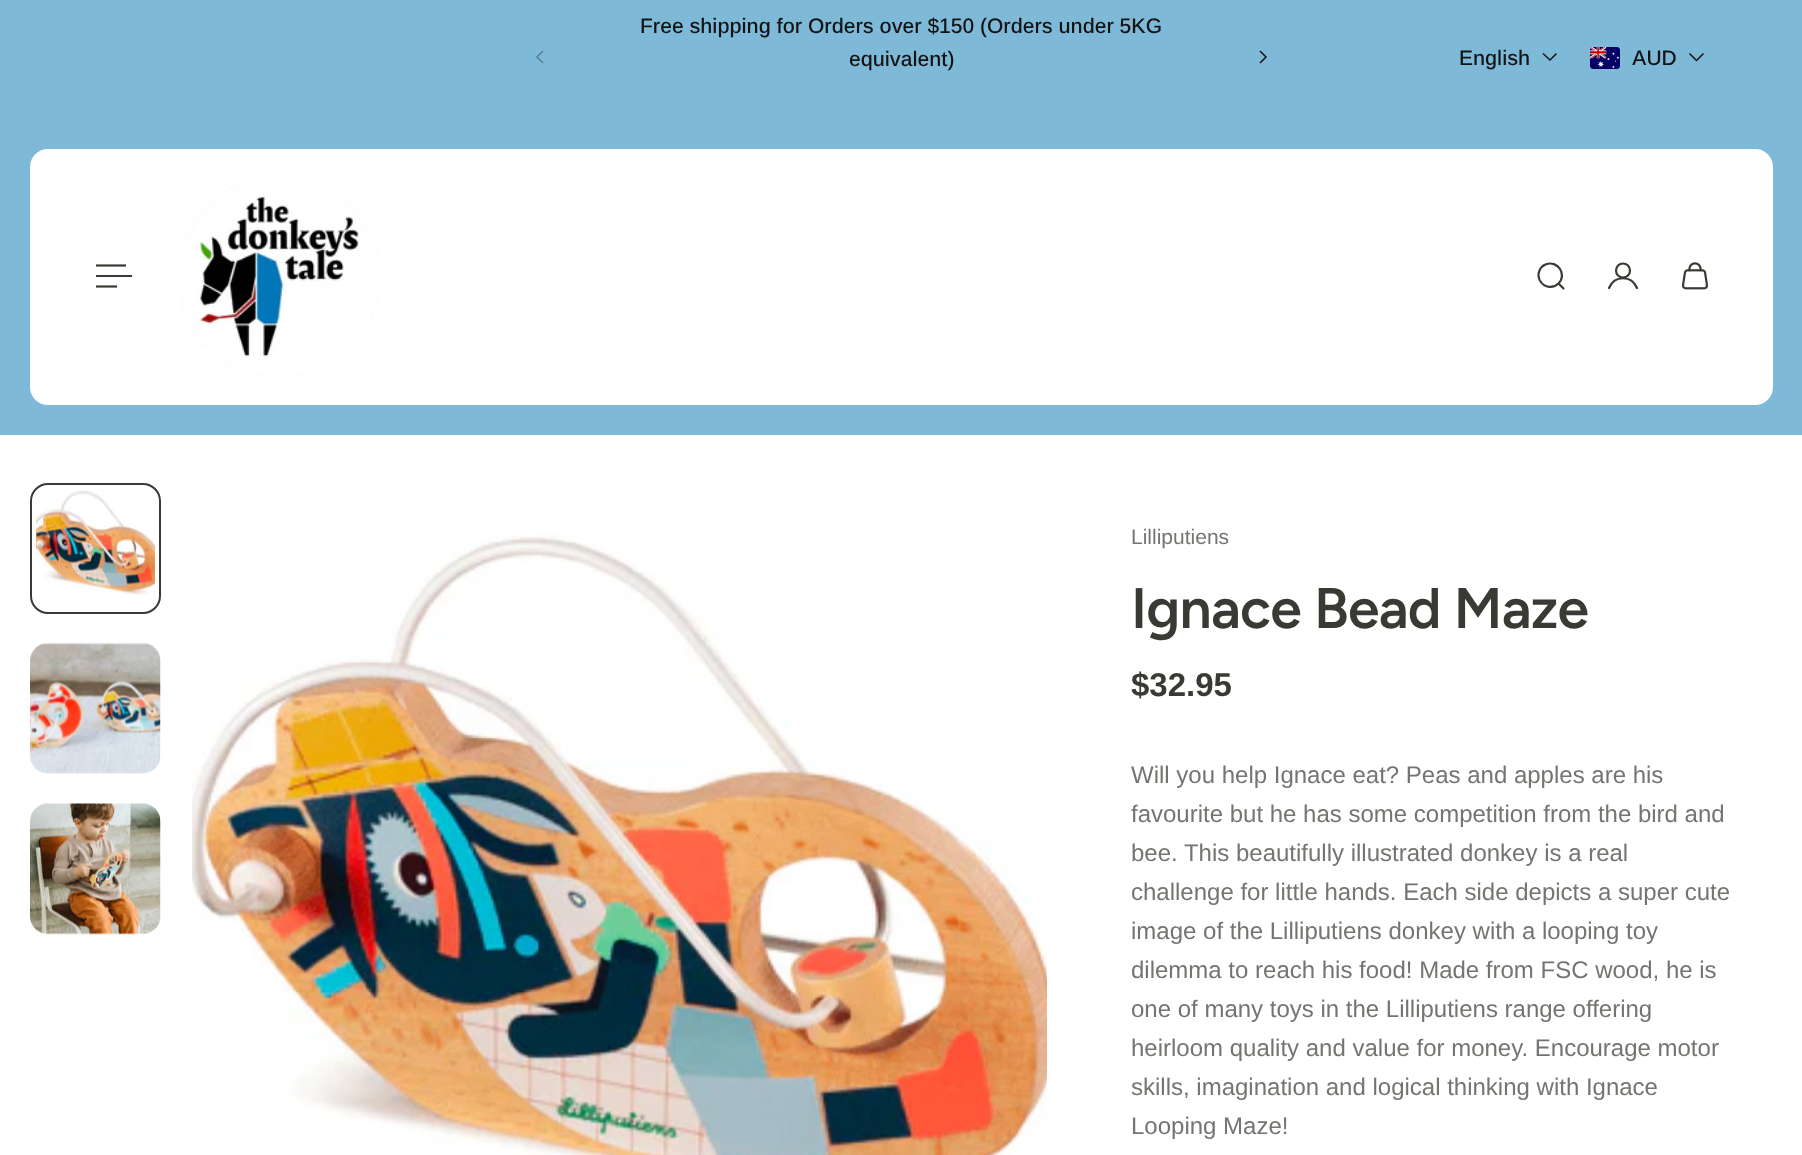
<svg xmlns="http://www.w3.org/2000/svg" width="1802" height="1155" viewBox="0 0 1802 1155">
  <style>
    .t1 { font: 500 21px Arimo; fill: #141416; }
    .t2 { font: 21px Arimo; fill: #767470; }
    .t3 { font: 600 57px Figtree; letter-spacing: -0.75px; fill: #3b3933; }
    .t4 { font: bold 33px Arimo; fill: #3b3933; }
    .t5 { font: 24px Arimo; fill: #767470; }
  </style>
  <rect width="100%" height="100%" fill="#7ebad7"/>
  <path d="M543 51L537 57L543 63" fill="none" stroke="#598093" stroke-width="1.5"/>
  <text x="640" y="33" class="t1">Free shipping for Orders over $150 (Orders under 5KG</text>
  <text x="849" y="66" class="t1">equivalent)</text>
  <path d="M1260 51L1266 57L1260 63" fill="none" stroke="#141416" stroke-width="1.5"/>
  <text x="1459" y="65" class="t1">English</text>
  <path d="M1556.5 53.5L1550 60L1543 53.5" fill="none" stroke="#141416" stroke-width="1.5"/>
  <image x="1590" y="47" width="30" height="22" href="images/1.png"/>
  <text x="1632" y="65" class="t1">AUD</text>
  <path d="M1703.5 53.5L1696.5 60.5L1689.5 53.5" fill="none" stroke="#141416" stroke-width="1.5"/>
  <rect x="30" y="149" width="1743" height="256" rx="18" fill="#fff"/>
  <path d="M96 265.5H126" fill="none" stroke="#3b3933" stroke-width="2.2"/>
  <rect x="96" y="275" width="36" height="2" fill="#3b3933"/>
  <path d="M96 286.5H117" fill="none" stroke="#3b3933" stroke-width="2.2"/>
  <image x="181" y="182" width="198" height="195" href="images/2.png"/>
  <path d="M1563.5 288.5L1558.5 283.5M1558.5 283.5C1567.5 274.5 1557.5 259.5 1545.5 264.5C1543 265.5 1540.5 268 1539.5 270.5C1538 274 1538.5 278.5 1540.5 281.5C1544.5 288 1553.5 288.5 1558.5 283.5Z" fill="none" stroke="#3b3933" stroke-width="2.2" stroke-linecap="round" stroke-linejoin="round"/>
  <circle cx="1623" cy="270.5" r="7" fill="none" stroke="#3b3933" stroke-width="2.2"/>
  <path d="M1609 288C1614.5 275 1631.5 275 1637 288" fill="none" stroke="#3b3933" stroke-width="2.2" stroke-linecap="round" stroke-linejoin="round"/>
  <image x="1682" y="262" width="26" height="28" href="images/3.png"/>
  <rect x="0" y="435" width="1802" height="720" fill="#fff"/>
  <image x="30" y="490" width="131" height="105" href="images/4.png"/>
  <rect x="33" y="486" width="125" height="125" rx="15" fill="none" stroke="#fff" stroke-width="6"/>
  <rect x="31" y="484" width="129" height="129" rx="17" fill="none" stroke="#3b3933" stroke-width="2"/>
  <image x="30" y="642" width="131" height="132" href="images/5.png"/>
  <image x="30" y="803" width="131" height="132" href="images/6.png"/>
  <image x="192" y="533" width="855" height="622" href="images/7.png"/>
  <text x="1131" y="544" class="t2">Lilliputiens</text>
  <text x="1131" y="628" class="t3">Ignace Bead Maze</text>
  <text x="1131" y="696" class="t4">$32.95</text>
  <text x="1131" y="783" class="t5">Will you help Ignace eat? Peas and apples are his</text>
  <text x="1131" y="822" class="t5">favourite but he has some competition from the bird and</text>
  <text x="1131" y="861" class="t5">bee. This beautifully illustrated donkey is a real</text>
  <text x="1131" y="900" class="t5">challenge for little hands. Each side depicts a super cute</text>
  <text x="1131" y="939" class="t5">image of the Lilliputiens donkey with a looping toy</text>
  <text x="1131" y="978" class="t5">dilemma to reach his food! Made from FSC wood, he is</text>
  <text x="1131" y="1017" class="t5">one of many toys in the Lilliputiens range offering</text>
  <text x="1131" y="1056" class="t5">heirloom quality and value for money. Encourage motor</text>
  <text x="1131" y="1095" class="t5">skills, imagination and logical thinking with Ignace</text>
  <text x="1131" y="1134" class="t5">Looping Maze!</text>
</svg>
